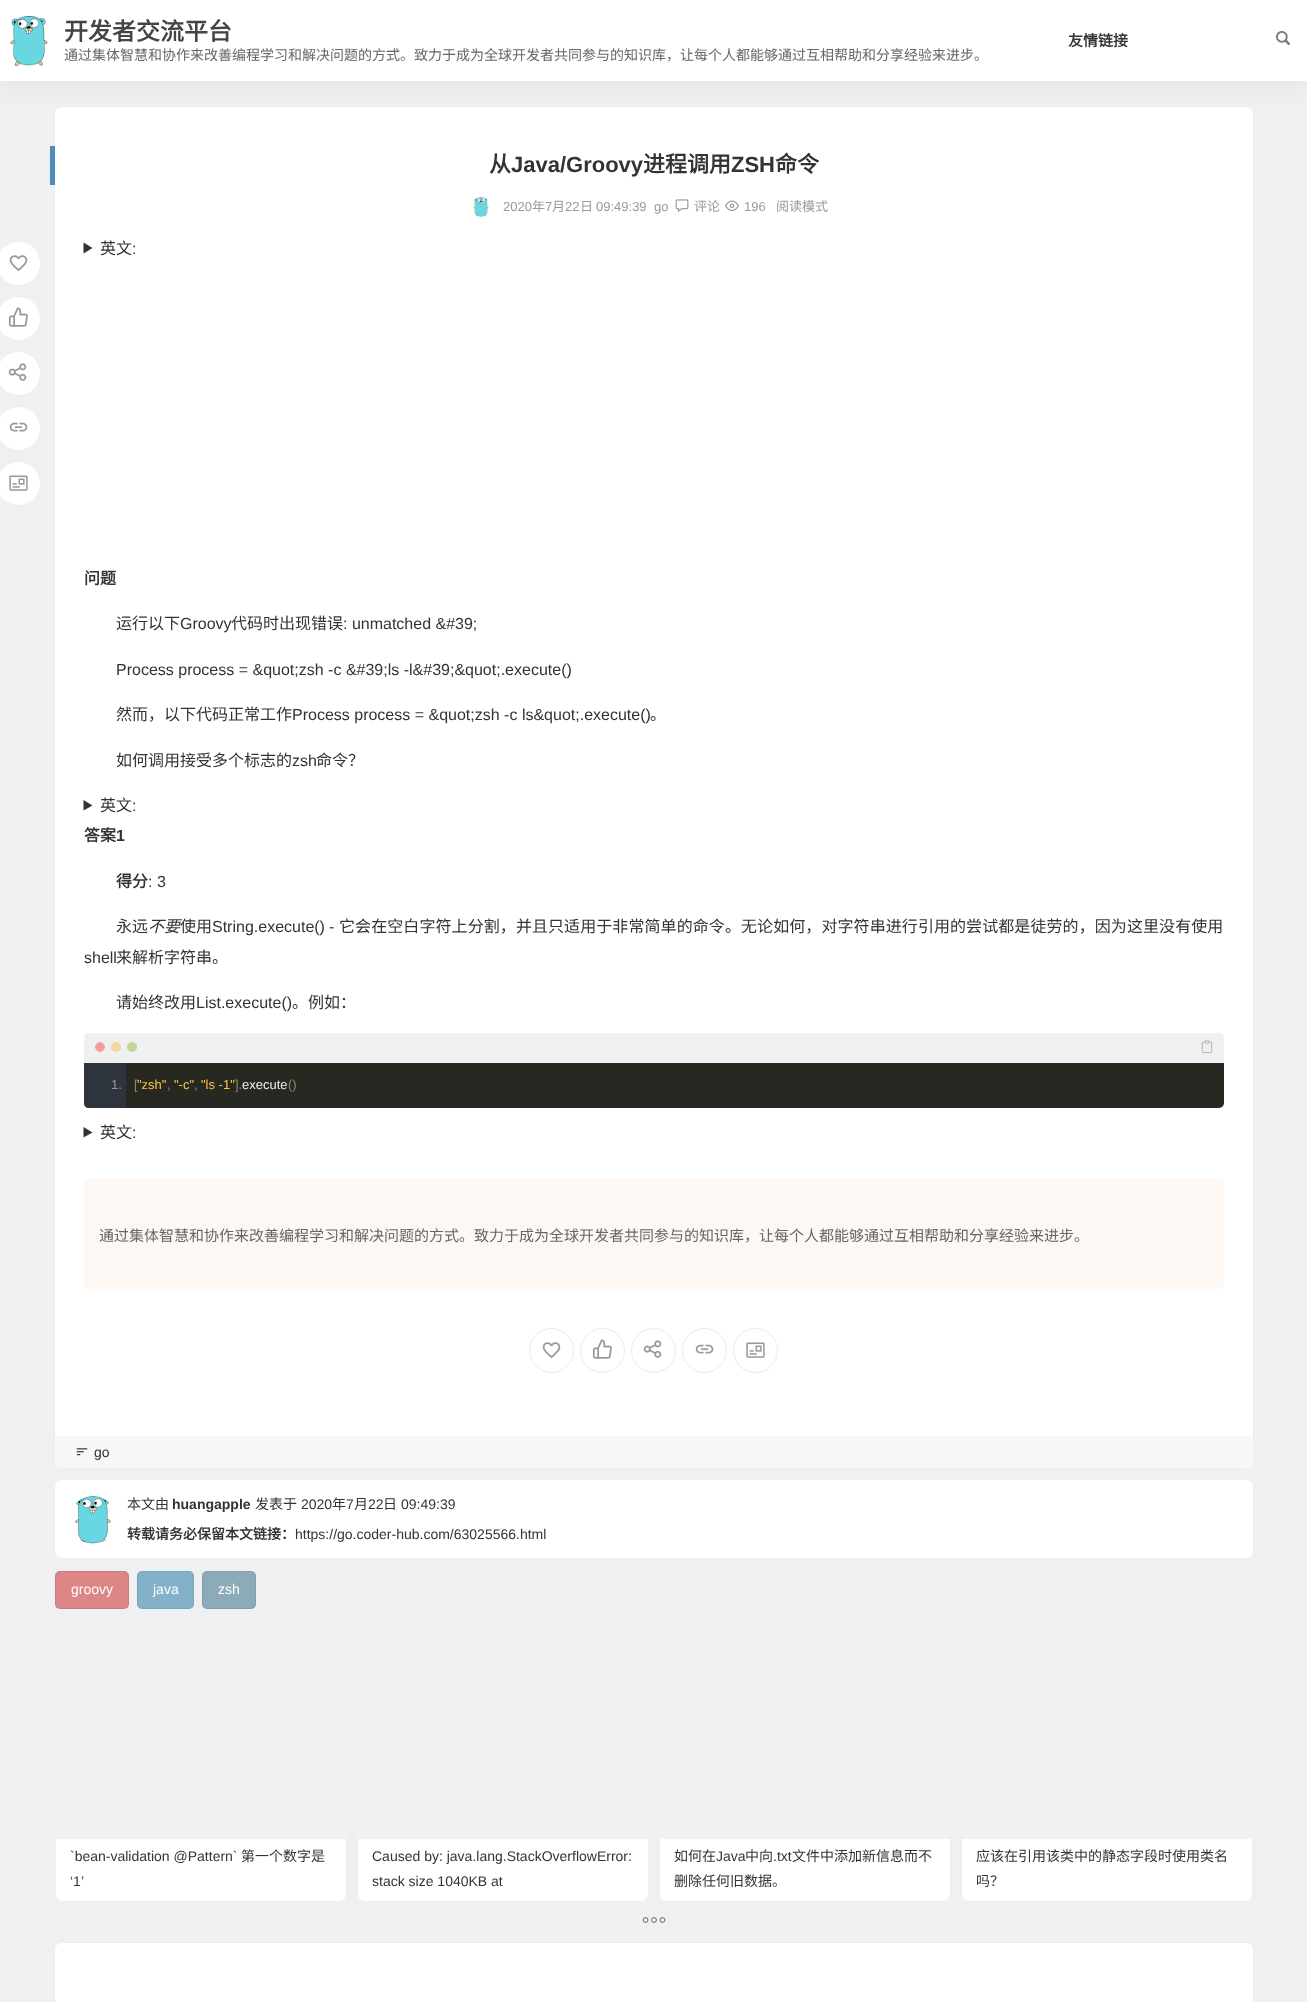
<svg xmlns="http://www.w3.org/2000/svg" width="1307" height="2002" viewBox="0 0 1307 2002">
  <style>
    .t1 { font: bold 24px Noto Sans CJK SC; fill: #444; }
    .t2 { font: 14px Noto Sans CJK SC; fill: #666; }
    .t3 { font: bold 15px Noto Sans CJK SC; fill: #333; }
    .t4 { font: bold 22px Noto Sans CJK SC; fill: #333; }
    .t5 { font: bold 22px Liberation Sans; fill: #333; }
    .t6 { font: 13px Liberation Sans; fill: #999; }
    .t7 { font: 13px Noto Sans CJK SC; fill: #999; }
    .t8 { font: 16px Noto Sans CJK SC; fill: #333; }
    .t9 { font: 16px Liberation Sans; fill: #333; }
    .t10 { font: bold 16px Noto Sans CJK SC; fill: #333; }
    .t11 { font: bold 16px Liberation Sans; fill: #333; }
    .t12 { font: italic 16px Noto Sans CJK SC; fill: #333; }
    .t13 { font: 16px Liberation Sans; letter-spacing: 0.08px; fill: #333; }
    .t14 { font: 16px Noto Sans CJK SC; letter-spacing: 0.08px; fill: #333; }
    .t15 { font: 13px Liberation Sans; fill: #8b8970; }
    .t16 { font: 13px Liberation Sans; fill: #fec243; }
    .t17 { font: 13px Liberation Sans; fill: #f0f0f0; }
    .t18 { font: 15px Noto Sans CJK SC; fill: #666; }
    .t19 { font: 14px Liberation Sans; fill: #333; }
    .t20 { font: 14px Noto Sans CJK SC; fill: #333; }
    .t21 { font: bold 14px Liberation Sans; fill: #333; }
    .t22 { font: bold 14px Noto Sans CJK SC; fill: #333; }
    .t23 { font: 14px Liberation Sans; fill: #fff; }
  </style>
  <defs>
    <linearGradient id="g1" gradientUnits="userSpaceOnUse" x1="201" y1="1620" x2="201" y2="1902"><stop offset="0" stop-color="#eff0f2"/><stop offset="0.5" stop-color="#fff"/></linearGradient>
    <linearGradient id="g2" gradientUnits="userSpaceOnUse" x1="503" y1="1620" x2="503" y2="1902"><stop offset="0" stop-color="#eff0f2"/><stop offset="0.5" stop-color="#fff"/></linearGradient>
    <linearGradient id="g3" gradientUnits="userSpaceOnUse" x1="805" y1="1620" x2="805" y2="1902"><stop offset="0" stop-color="#eff0f2"/><stop offset="0.5" stop-color="#fff"/></linearGradient>
    <linearGradient id="g4" gradientUnits="userSpaceOnUse" x1="1107" y1="1620" x2="1107" y2="1902"><stop offset="0" stop-color="#eff0f2"/><stop offset="0.5" stop-color="#fff"/></linearGradient>
  </defs>
  <rect width="100%" height="100%" fill="#eff0f2"/>
  <rect x="54" y="106" width="1200" height="1363" rx="8" fill="#fff"/>
  <rect x="54.5" y="106.5" width="1199" height="1362" rx="7.5" fill="none" stroke="#00000012"/>
  <rect x="0" y="3" width="1307" height="81" fill="#0000000f" filter="blur(15px)"/>
  <rect x="0" y="0" width="1307" height="81" fill="#fff"/>
  <image x="10" y="16" width="38" height="50" href="images/1.png"/>
  <text x="64" y="40" class="t1">开发者交流平台</text>
  <text x="64" y="60" class="t2">通过集体智慧和协作来改善编程学习和解决问题的方式。致力于成为全球开发者共同参与的知识库，让每个人都能够通过互相帮助和分享经验来进步。</text>
  <text x="1068" y="46" class="t3">友情链接</text>
  <image x="1276" y="31" width="14" height="14" href="images/2.png"/>
  <circle cx="18.5" cy="263.5" r="22.5" fill="#fff"/>
  <circle cx="18.5" cy="263.5" r="22" fill="none" stroke="#00000012"/>
  <image x="9" y="255" width="19" height="17" href="images/3.png"/>
  <circle cx="18.5" cy="318.5" r="22.5" fill="#fff"/>
  <circle cx="18.5" cy="318.5" r="22" fill="none" stroke="#00000012"/>
  <image x="8" y="307" width="20" height="20" href="images/4.png"/>
  <circle cx="18.5" cy="373.5" r="22.5" fill="#fff"/>
  <circle cx="18.5" cy="373.5" r="22" fill="none" stroke="#00000012"/>
  <image x="8" y="363" width="19" height="18" href="images/5.png"/>
  <circle cx="18.5" cy="428.5" r="22.5" fill="#fff"/>
  <circle cx="18.5" cy="428.5" r="22" fill="none" stroke="#00000012"/>
  <image x="9" y="422" width="19" height="10" href="images/6.png"/>
  <circle cx="18.5" cy="483.5" r="22.5" fill="#fff"/>
  <circle cx="18.5" cy="483.5" r="22" fill="none" stroke="#00000012"/>
  <image x="9" y="475" width="19" height="16" href="images/7.png"/>
  <rect x="50" y="146" width="5" height="39" fill="#4d8cb8"/>
  <text x="489" y="172" class="t4">从</text>
  <text x="511" y="172" class="t5">Java/Groovy</text>
  <text x="643" y="172" class="t4">进程调用</text>
  <text x="731" y="172" class="t5">ZSH</text>
  <text x="775" y="172" class="t4">命令</text>
  <image x="473" y="197" width="16" height="20" href="images/8.png"/>
  <text x="503" y="211" class="t6">2020</text>
  <text x="532" y="211" class="t7">年</text>
  <text x="545" y="211" class="t6">7</text>
  <text x="552" y="211" class="t7">月</text>
  <text x="565" y="211" class="t6">22</text>
  <text x="580" y="211" class="t7">日</text>
  <text x="596" y="211" class="t6">09:49:39</text>
  <text x="654" y="211" class="t6">go</text>
  <image x="675" y="199" width="14" height="13" href="images/9.png"/>
  <text x="694" y="211" class="t7">评论</text>
  <image x="725" y="200" width="14" height="11" href="images/10.png"/>
  <text x="744" y="211" class="t6">196</text>
  <text x="776" y="211" class="t7">阅读模式</text>
  <path d="M83.5 242.5L92.5 248L83.5 253.5Z" fill="#333"/>
  <text x="100" y="254" class="t8">英文</text>
  <text x="132" y="254" class="t9">:</text>
  <text x="84" y="584" class="t10">问题</text>
  <text x="116" y="629" class="t8">运行以下</text>
  <text x="180" y="629" class="t9">Groovy</text>
  <text x="231" y="629" class="t8">代码时出现错误</text>
  <text x="343" y="629" class="t9">: unmatched &amp;#39;</text>
  <text x="116" y="675" class="t9">Process process = &amp;quot;zsh -c &amp;#39;ls -l&amp;#39;&amp;quot;.execute()</text>
  <text x="116" y="720" class="t8">然而，以下代码正常工作</text>
  <text x="292" y="720" class="t9">Process process = &amp;quot;zsh -c ls&amp;quot;.execute()</text>
  <text x="650" y="720" class="t8">。</text>
  <text x="116" y="766" class="t8">如何调用接受多个标志的</text>
  <text x="292" y="766" class="t9">zsh</text>
  <text x="316" y="766" class="t8">命令？</text>
  <path d="M83.5 800L92.5 805.5L83.5 810.5Z" fill="#333"/>
  <text x="100" y="811" class="t8">英文</text>
  <text x="132" y="811" class="t9">:</text>
  <text x="84" y="841" class="t10">答案</text>
  <text x="116" y="841" class="t11">1</text>
  <text x="116" y="887" class="t10">得分</text>
  <text x="148" y="887" class="t9">: 3</text>
  <text x="116" y="932" class="t8">永远</text>
  <text x="148" y="932" class="t12">不要</text>
  <text x="180" y="932" class="t8">使用</text>
  <text x="212" y="932" class="t9">String.execute()</text>
  <text x="329" y="932" class="t13">-</text>
  <text x="339" y="932" class="t14">它会在空白字符上分割，并且只适用于非常简单的命令。无论如何，对字符串进行引用的尝试都是徒劳的，因为这里没有使用</text>
  <text x="84" y="963" class="t9">shell</text>
  <text x="116" y="963" class="t8">来解析字符串。</text>
  <text x="116" y="1008" class="t8">请始终改用</text>
  <text x="196" y="1008" class="t9">List.execute()</text>
  <text x="292" y="1008" class="t8">。例如：</text>
  <rect x="84" y="1037" width="1140" height="71" rx="5" fill="#272822"/>
  <path d="M89 1033H1219C1222 1033 1224 1035 1224 1038V1063H84V1038C84 1035 86 1033 89 1033Z" fill="#eff0f2"/>
  <image x="1201" y="1040" width="12" height="14" href="images/11.png"/>
  <circle cx="132" cy="1047" r="5" fill="#c4d693"/>
  <circle cx="116" cy="1047" r="5" fill="#f7d6a4"/>
  <circle cx="100" cy="1047" r="4.5" fill="none" stroke="#f79a9b"/>
  <circle cx="100" cy="1047" r="4" fill="#f79a9b"/>
  <path d="M84 1063H126V1108H89C86 1108 84 1106 84 1103Z" fill="#2d343c"/>
  <text x="111" y="1089" class="t6">1.</text>
  <text x="134" y="1089" class="t15">[</text>
  <text x="137" y="1089" class="t16">"zsh"</text>
  <text x="167" y="1089" class="t15">,</text>
  <text x="174" y="1089" class="t16">"-c"</text>
  <text x="194" y="1089" class="t15">,</text>
  <text x="201" y="1089" class="t16">"ls -1"</text>
  <text x="235" y="1089" class="t15">].</text>
  <text x="242" y="1089" class="t17">execute</text>
  <text x="288" y="1089" class="t15">()</text>
  <path d="M83.5 1127L92.5 1132.5L83.5 1137.5Z" fill="#333"/>
  <text x="100" y="1138" class="t8">英文</text>
  <text x="132" y="1138" class="t9">:</text>
  <rect x="84" y="1178" width="1140" height="111" rx="5" fill="#fdf8f3"/>
  <text x="99" y="1241" class="t18">通过集体智慧和协作来改善编程学习和解决问题的方式。致力于成为全球开发者共同参与的知识库，让每个人都能够通过互相帮助和分享经验来进步。</text>
  <circle cx="551.5" cy="1350.5" r="22" fill="none" stroke="#ececec"/>
  <image x="542" y="1342" width="19" height="17" href="images/3.png"/>
  <circle cx="602.5" cy="1350.5" r="22" fill="none" stroke="#ececec"/>
  <image x="592" y="1339" width="20" height="20" href="images/4.png"/>
  <circle cx="653.5" cy="1350.5" r="22" fill="none" stroke="#ececec"/>
  <image x="643" y="1340" width="19" height="18" href="images/5.png"/>
  <circle cx="704.5" cy="1350.5" r="22" fill="none" stroke="#ececec"/>
  <image x="695" y="1344" width="19" height="10" href="images/6.png"/>
  <circle cx="755.5" cy="1350.5" r="22" fill="none" stroke="#ececec"/>
  <image x="746" y="1342" width="19" height="16" href="images/7.png"/>
  <path d="M55 1436H1253V1460C1253 1464.5 1249.5 1468 1245 1468H63C58.5 1468 55 1464.5 55 1460Z" fill="#f7f8f9"/>
  <image x="76" y="1448" width="12" height="8" href="images/12.png"/>
  <text x="94" y="1457" class="t19">go</text>
  <rect x="54" y="1479" width="1200" height="80" rx="8" fill="#fff"/>
  <rect x="54.5" y="1479.5" width="1199" height="79" rx="7.5" fill="none" stroke="#00000012"/>
  <image x="75" y="1496" width="36" height="48" href="images/13.png"/>
  <text x="127" y="1509" class="t20">本文由</text>
  <text x="172" y="1509" class="t21">huangapple</text>
  <text x="255" y="1509" class="t20">发表于</text>
  <text x="301" y="1509" class="t19">2020</text>
  <text x="332" y="1509" class="t20">年</text>
  <text x="346" y="1509" class="t19">7</text>
  <text x="354" y="1509" class="t20">月</text>
  <text x="368" y="1509" class="t19">22</text>
  <text x="383" y="1509" class="t20">日</text>
  <text x="401" y="1509" class="t19">09:49:39</text>
  <text x="127" y="1539" class="t22">转载请务必保留本文链接：</text>
  <text x="295" y="1539" class="t19">https://go.coder-hub.com/63025566.html</text>
  <rect x="55" y="1571" width="74" height="38" rx="5" fill="#dc8688"/>
  <rect x="55.5" y="1571.5" width="73" height="37" rx="4.5" fill="none" stroke="#00000012"/>
  <text x="71" y="1594" class="t23">groovy</text>
  <rect x="137" y="1571" width="57" height="38" rx="5" fill="#83b2c8"/>
  <rect x="137.5" y="1571.5" width="56" height="37" rx="4.5" fill="none" stroke="#00000012"/>
  <text x="153" y="1594" class="t23">java</text>
  <rect x="202" y="1571" width="54" height="38" rx="5" fill="#8caab9"/>
  <rect x="202.5" y="1571.5" width="53" height="37" rx="4.5" fill="none" stroke="#00000012"/>
  <text x="218" y="1594" class="t23">zsh</text>
  <rect x="55" y="1620" width="292" height="282" rx="8" fill="url(#g1)"/>
  <rect x="55.5" y="1620.5" width="291" height="281" rx="7.5" fill="none" stroke="#00000012"/>
  <image x="55" y="1620" width="292" height="219" href="images/14.png"/>
  <text x="70" y="1861" class="t19">`bean-validation @Pattern`</text>
  <text x="241" y="1861" class="t20">第一个数字是</text>
  <text x="70" y="1886" class="t19">‘1’</text>
  <rect x="357" y="1620" width="292" height="282" rx="8" fill="url(#g2)"/>
  <rect x="357.5" y="1620.5" width="291" height="281" rx="7.5" fill="none" stroke="#00000012"/>
  <image x="357" y="1620" width="292" height="219" href="images/14.png"/>
  <text x="372" y="1861" class="t19">Caused by: java.lang.StackOverflowError:</text>
  <text x="372" y="1886" class="t19">stack size 1040KB at</text>
  <rect x="659" y="1620" width="292" height="282" rx="8" fill="url(#g3)"/>
  <rect x="659.5" y="1620.5" width="291" height="281" rx="7.5" fill="none" stroke="#00000012"/>
  <image x="659" y="1620" width="292" height="219" href="images/14.png"/>
  <text x="674" y="1861" class="t20">如何在</text>
  <text x="716" y="1861" class="t19">Java</text>
  <text x="745" y="1861" class="t20">中向</text>
  <text x="773" y="1861" class="t19">.txt</text>
  <text x="792" y="1861" class="t20">文件中添加新信息而不</text>
  <text x="674" y="1886" class="t20">删除任何旧数据。</text>
  <rect x="961" y="1620" width="292" height="282" rx="8" fill="url(#g4)"/>
  <rect x="961.5" y="1620.5" width="291" height="281" rx="7.5" fill="none" stroke="#00000012"/>
  <image x="961" y="1620" width="292" height="219" href="images/14.png"/>
  <text x="976" y="1861" class="t20">应该在引用该类中的静态字段时使用类名</text>
  <text x="976" y="1886" class="t20">吗？</text>
  <image x="642" y="1917" width="24" height="6" href="images/15.png"/>
  <rect x="54" y="1942" width="1200" height="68" rx="8" fill="#fff"/>
  <rect x="54.5" y="1942.5" width="1199" height="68" rx="7.5" fill="none" stroke="#00000012"/>
</svg>
